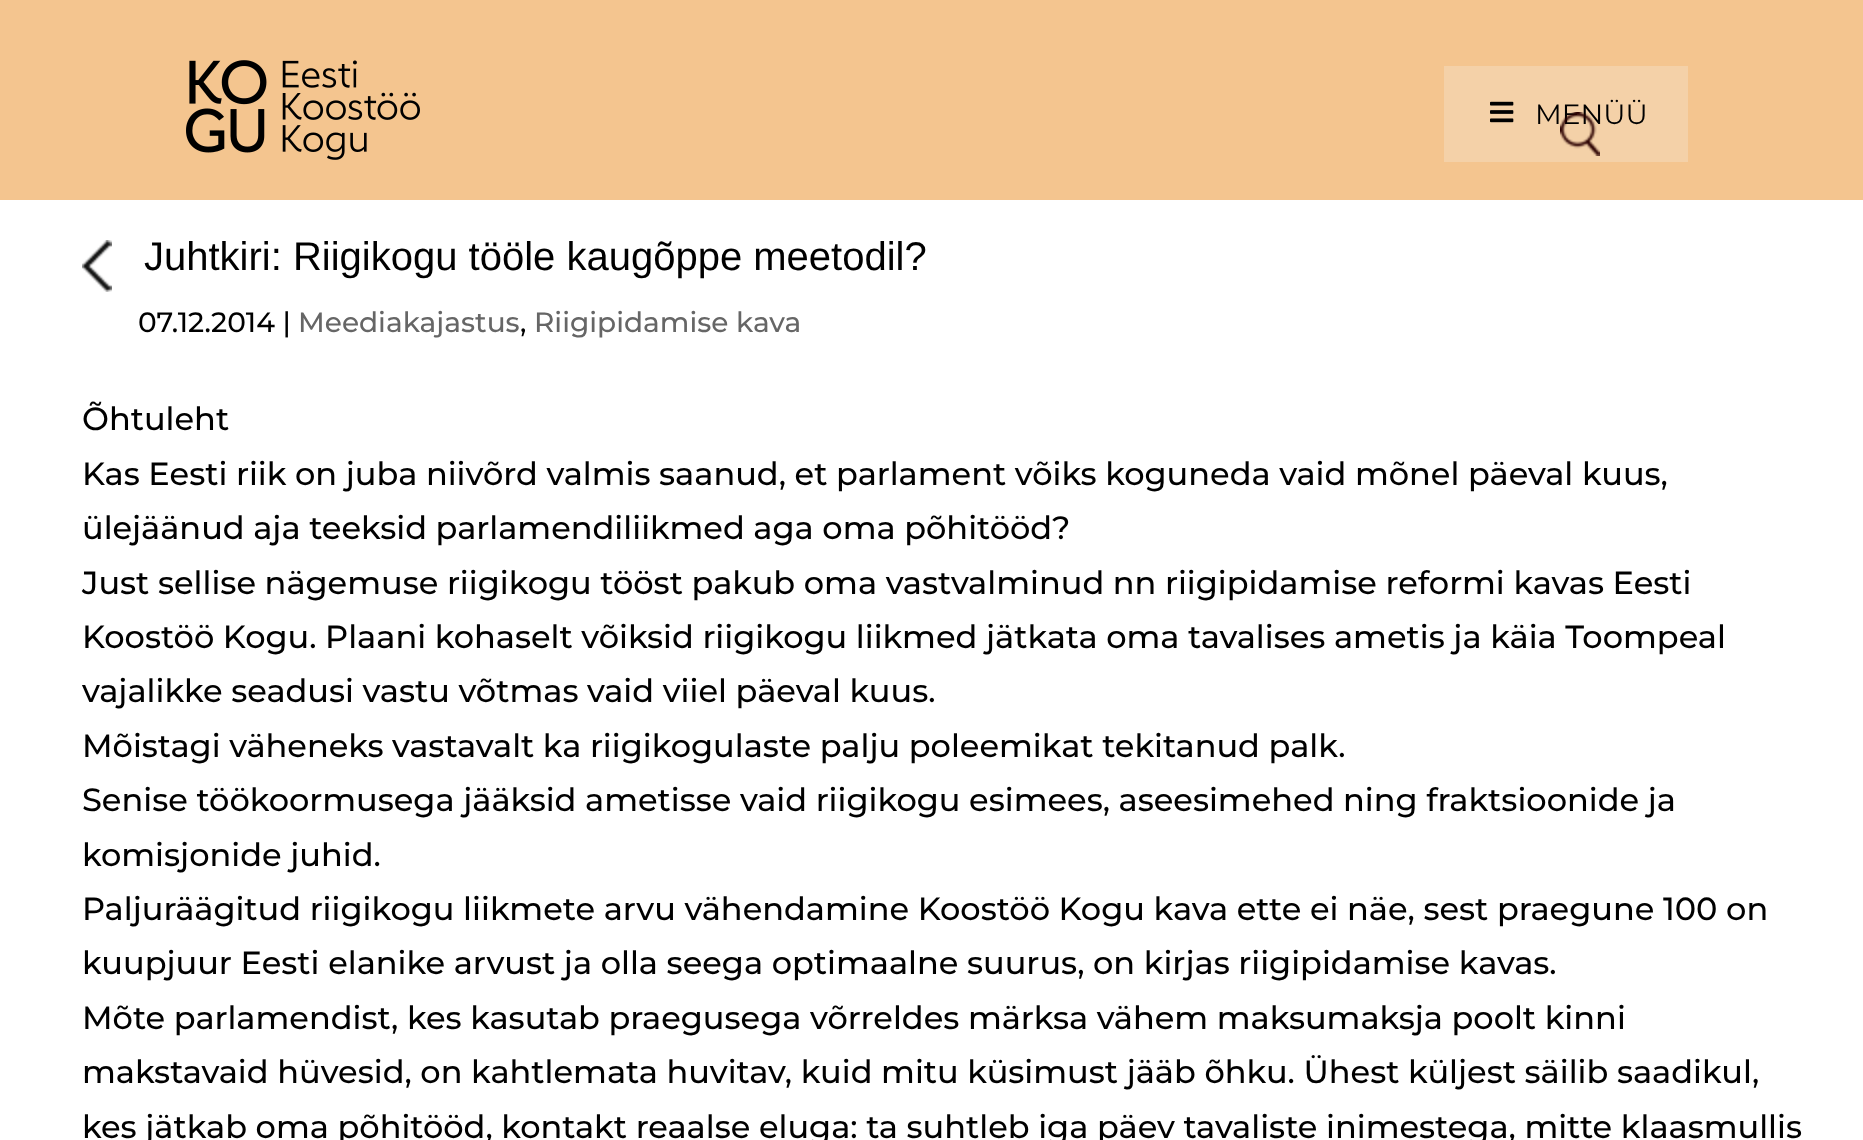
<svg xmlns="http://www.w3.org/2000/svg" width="1863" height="1140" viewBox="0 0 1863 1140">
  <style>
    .t1 { font: 28px Montserrat; fill: #000; }
    .t2 { font: 40px Liberation Sans; fill: #000; }
    .t3 { font: 500 28px Montserrat; fill: #000; }
    .t4 { font: 500 28px Montserrat; fill: #666; }
    .t5 { font: 500 32px Montserrat; fill: #000; }
  </style>
  <rect width="100%" height="100%" fill="#fff"/>
  <rect x="0" y="0" width="1863" height="200" fill="#f4c58f"/>
  <image x="186" y="60" width="234" height="100" href="images/1.png"/>
  <rect x="1444" y="66" width="244" height="96" fill="#f4d1a8"/>
  <image x="1490" y="101" width="24" height="22" href="images/2.png"/>
  <text x="1535" y="124" class="t1">MENÜÜ</text>
  <image x="1560" y="112" width="40" height="44" href="images/3.png"/>
  <image x="82" y="240" width="30" height="52" href="images/4.png"/>
  <text x="144" y="270" class="t2">Juhtkiri: Riigikogu tööle kaugõppe meetodil?</text>
  <text x="138" y="332" class="t3">07.12.2014 |</text>
  <text x="298" y="332" class="t4">Meediakajastus</text>
  <text x="520" y="332" class="t3">,</text>
  <text x="534" y="332" class="t4">Riigipidamise kava</text>
  <text x="82" y="430" class="t5">Õhtuleht</text>
  <text x="82" y="485" class="t5">Kas Eesti riik on juba niivõrd valmis saanud, et parlament võiks koguneda vaid mõnel päeval kuus,</text>
  <text x="82" y="539" class="t5">ülejäänud aja teeksid parlamendiliikmed aga oma põhitööd?</text>
  <text x="82" y="594" class="t5">Just sellise nägemuse riigikogu tööst pakub oma vastvalminud nn riigipidamise reformi kavas Eesti</text>
  <text x="82" y="648" class="t5">Koostöö Kogu. Plaani kohaselt võiksid riigikogu liikmed jätkata oma tavalises ametis ja käia Toompeal</text>
  <text x="82" y="702" class="t5">vajalikke seadusi vastu võtmas vaid viiel päeval kuus.</text>
  <text x="82" y="757" class="t5">Mõistagi väheneks vastavalt ka riigikogulaste palju poleemikat tekitanud palk.</text>
  <text x="82" y="811" class="t5">Senise töökoormusega jääksid ametisse vaid riigikogu esimees, aseesimehed ning fraktsioonide ja</text>
  <text x="82" y="866" class="t5">komisjonide juhid.</text>
  <text x="82" y="920" class="t5">Paljuräägitud riigikogu liikmete arvu vähendamine Koostöö Kogu kava ette ei näe, sest praegune 100 on</text>
  <text x="82" y="974" class="t5">kuupjuur Eesti elanike arvust ja olla seega optimaalne suurus, on kirjas riigipidamise kavas.</text>
  <text x="82" y="1029" class="t5">Mõte parlamendist, kes kasutab praegusega võrreldes märksa vähem maksumaksja poolt kinni</text>
  <text x="82" y="1083" class="t5">makstavaid hüvesid, on kahtlemata huvitav, kuid mitu küsimust jääb õhku. Ühest küljest säilib saadikul,</text>
  <text x="82" y="1138" class="t5">kes jätkab oma põhitööd, kontakt reaalse eluga: ta suhtleb iga päev tavaliste inimestega, mitte klaasmullis</text>
</svg>
